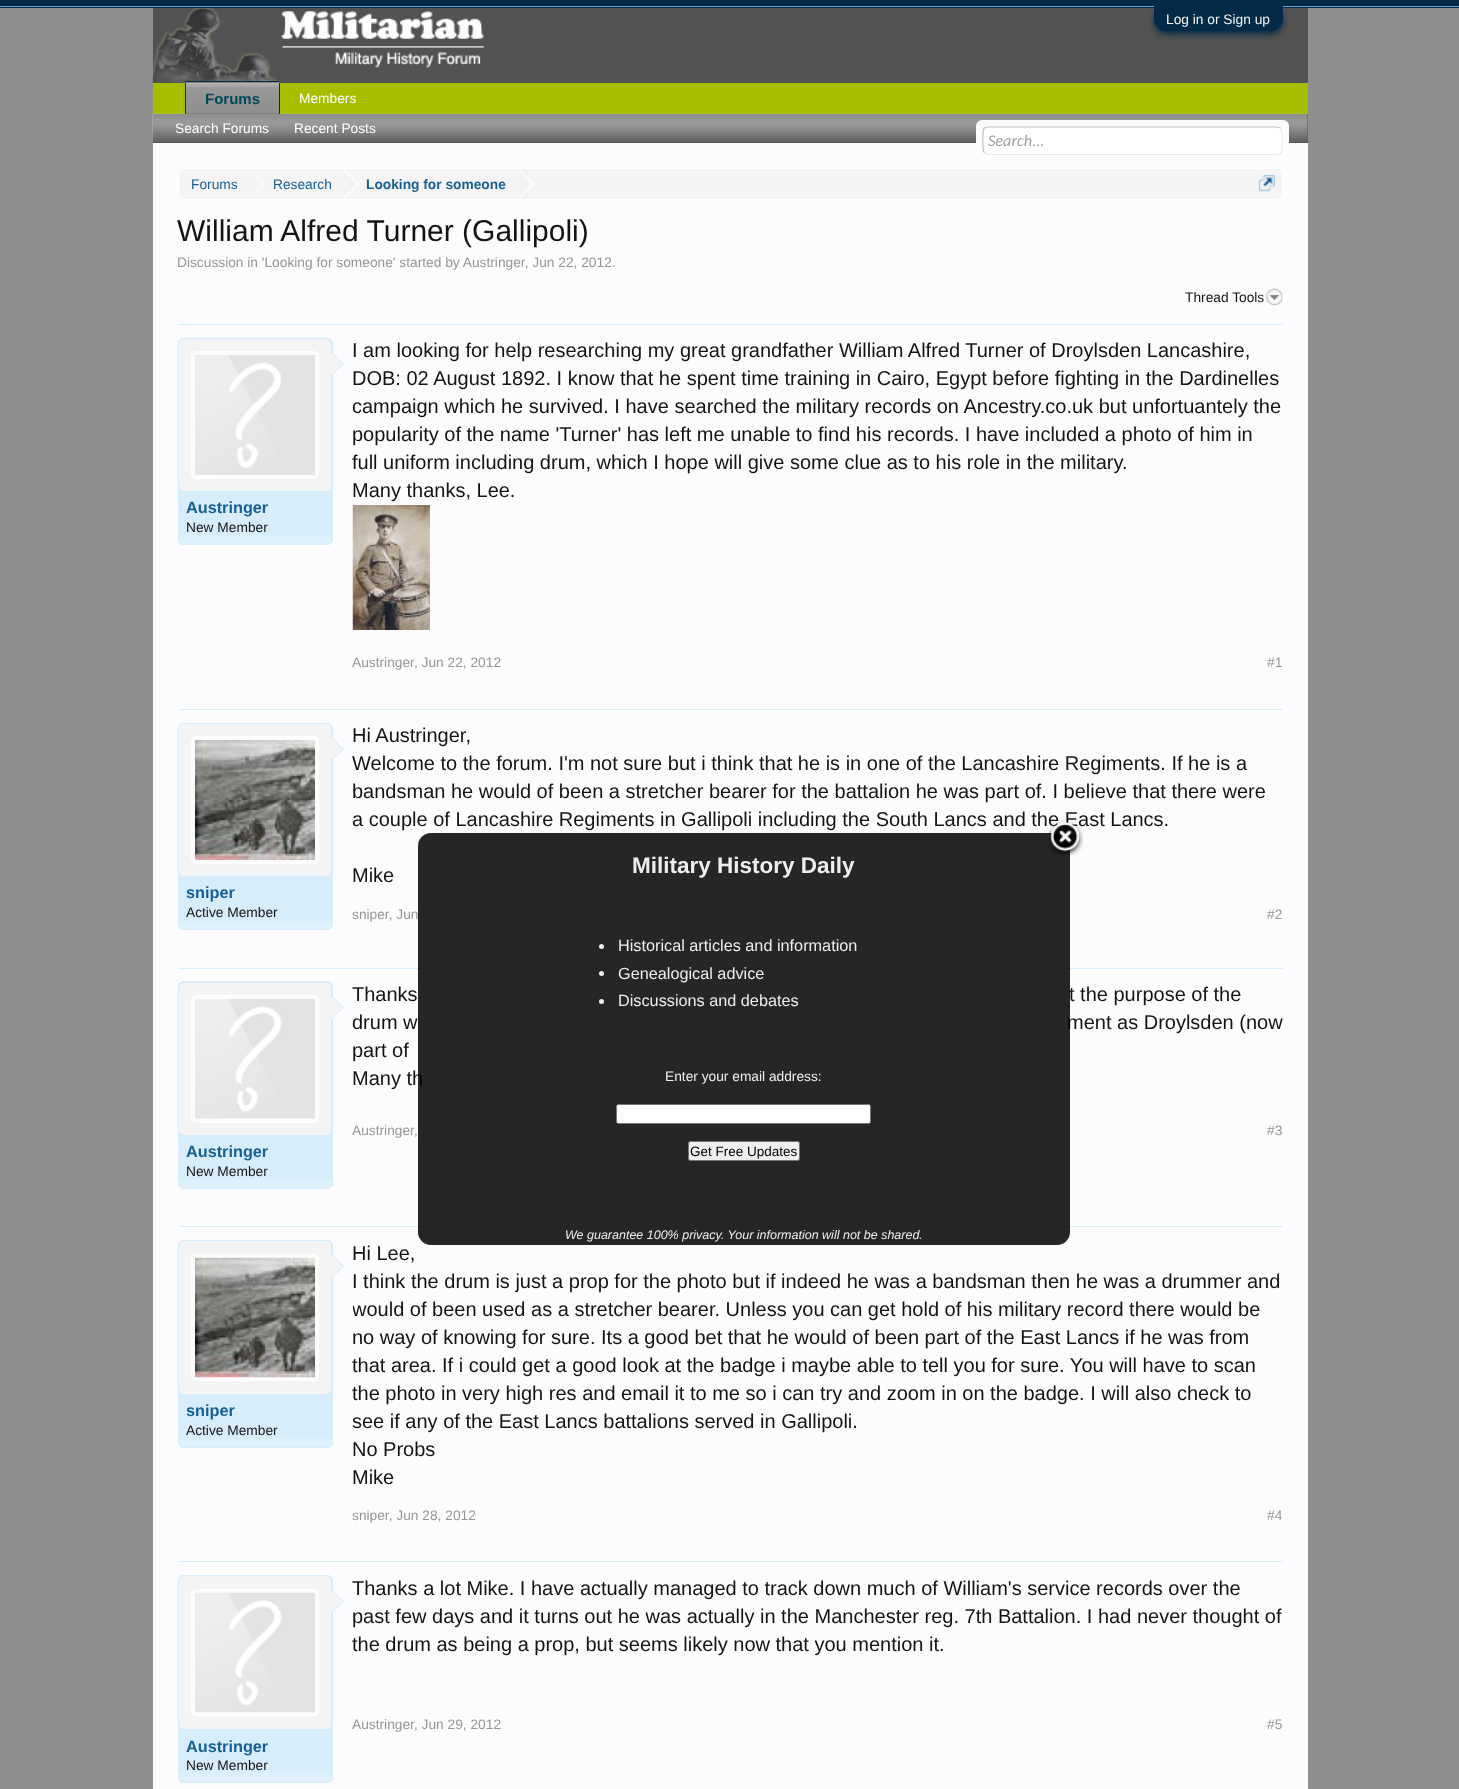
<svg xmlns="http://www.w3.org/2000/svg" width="1459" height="1789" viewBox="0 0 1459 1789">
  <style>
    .t1 { font: 13.75px Liberation Sans; fill: #f4f4f4; }
    .t2 { font: bold 15px Liberation Sans; fill: #004957; }
    .t3 { font: 13.75px Liberation Sans; fill: #fff; }
    .t4 { font: italic 16.25px Carlito; fill: #a0a0a0; }
    .t5 { font: 13.75px Liberation Sans; fill: #176093; }
    .t6 { font: bold 13.75px Liberation Sans; fill: #176093; }
    .t7 { font: 30px Liberation Sans; fill: #141414; }
    .t8 { font: 13.75px Liberation Sans; fill: #969696; }
    .t9 { font: 13.75px Liberation Sans; fill: #141414; }
    .t10 { font: bold 16.25px Liberation Sans; fill: #176093; }
    .t11 { font: 20px Liberation Sans; fill: #141414; }
    .t12 { font: bold 22.5px Liberation Sans; fill: #eee; }
    .t13 { font: 16.25px Liberation Sans; fill: #eee; }
    .t14 { font: 13.75px Liberation Sans; fill: #eee; }
    .t15 { font: 13.5px Liberation Sans; fill: #000; }
    .t16 { font: italic 12.5px Liberation Sans; fill: #eee; }
  </style>
  <defs>
    <clipPath id="clip1"><rect x="353" y="1240" width="930" height="254"/></clipPath>
  </defs>
  <rect width="100%" height="100%" fill="#8e8e8e"/>
  <rect x="0" y="0" width="1459" height="8" fill="#032a46"/>
  <rect x="0" y="6" width="1459" height="1" fill="#65a5d1"/>
  <rect x="153" y="8" width="1155" height="75" fill="#525252"/>
  <rect x="1154" y="9" width="129" height="25" rx="12.5" fill="#032a46" filter="blur(3px)"/>
  <path d="M1154 6H1283V18.5C1283 25.5 1277.5 31 1270.5 31H1166.5C1159.5 31 1154 25.5 1154 18.5Z" fill="#032a46"/>
  <text x="1166" y="24" class="t1">Log in or Sign up</text>
  <image x="152" y="8" width="332" height="75" href="images/1.png"/>
  <rect x="153" y="114" width="1155" height="29" fill="#525252"/>
  <rect x="153" y="83" width="1155" height="31" fill="#a7bd00"/>
  <path d="M187.5 81H277.5C279 81 280 82 280 83.5V114H185V83.5C185 82 186 81 187.5 81Z" fill="#525252"/>
  <image x="185" y="82" width="95" height="32" href="images/2.png"/>
  <rect x="186" y="81" width="93" height="1" fill="#032a46"/>
  <rect x="279" y="83" width="1" height="31" fill="#032a46"/>
  <rect x="185" y="83" width="1" height="31" fill="#032a46"/>
  <text x="205" y="104" class="t2">Forums</text>
  <image x="152" y="113" width="1156" height="30" href="images/3.png"/>
  <text x="175" y="133" class="t3">Search Forums</text>
  <text x="294" y="133" class="t3">Recent Posts</text>
  <text x="299" y="103" class="t3">Members</text>
  <rect x="153" y="143" width="1155" height="1646" fill="#fcfcff"/>
  <rect x="976" y="120" width="313" height="35" rx="6" fill="#fcfcff"/>
  <rect x="983" y="126" width="300" height="29" rx="5" fill="#fff"/>
  <path d="M1280.5 128C1283 131 1282 143 1282 147C1282 150 1282 154.5 1277.5 154.5H987.5L984.5 153" fill="none" stroke="#e9e9e9" stroke-width="1.2"/>
  <path d="M984.5 153C982 150.5 983 138 983 134.5C983 131 983 127 987.5 127H1277.5L1280.5 128" fill="none" stroke="#c0c0c0" stroke-width="1.2"/>
  <text x="988" y="146" class="t4">Search...</text>
  <rect x="178.5" y="168.5" width="1104" height="31" rx="5.5" fill="#f4f4f4" stroke="#fff"/>
  <text x="191" y="189" class="t5">Forums</text>
  <path d="M250 199V169L265 184Z" fill="#fff"/>
  <path d="M249 199V169L264 184Z" fill="#f4f4f4"/>
  <text x="273" y="189" class="t5">Research</text>
  <path d="M344 199V169L359 184Z" fill="#fff"/>
  <path d="M342.5 199V169L357.5 184Z" fill="#f4f4f4"/>
  <text x="366" y="189" class="t6">Looking for someone</text>
  <path d="M519 199V169L534 184Z" fill="#fff"/>
  <path d="M517.5 199V169L532.5 184Z" fill="#f4f4f4"/>
  <image x="1258" y="175" width="17" height="17" href="images/4.png"/>
  <text x="177" y="241" class="t7">William Alfred Turner (Gallipoli)</text>
  <text x="177" y="267" class="t8">Discussion in 'Looking for someone' started by Austringer, Jun 22, 2012.</text>
  <text x="1185" y="302" class="t9">Thread Tools</text>
  <image x="1266" y="288" width="17" height="18" href="images/5.png"/>
  <rect x="178" y="324" width="1105" height="1" fill="#d7edfc"/>
  <rect x="178" y="338" width="155" height="207" rx="6" fill="#d7edfc"/>
  <image x="178" y="535" width="154" height="9" href="images/6.png"/>
  <rect x="178.5" y="338.5" width="154" height="206" rx="5.5" fill="none" stroke="#d7edfc"/>
  <rect x="179" y="339" width="152" height="152" rx="5" fill="#f4f4f4"/>
  <rect x="191.5" y="351.5" width="127" height="127" rx="4.5" fill="#fcfcff" stroke="#fff"/>
  <image x="195" y="355" width="120" height="120" href="images/7.png"/>
  <path d="M331 376V351L344 364Z" fill="#d7edfc"/>
  <path d="M330 376V351L342.5 364Z" fill="#f4f4f4"/>
  <text x="186" y="513" class="t10">Austringer</text>
  <text x="186" y="532" class="t9">New Member</text>
  <text x="352" y="357" class="t11">I am looking for help researching my great grandfather William Alfred Turner of Droylsden Lancashire,</text>
  <text x="352" y="385" class="t11">DOB: 02 August 1892. I know that he spent time training in Cairo, Egypt before fighting in the Dardinelles</text>
  <text x="352" y="413" class="t11">campaign which he survived. I have searched the military records on Ancestry.co.uk but unfortuantely the</text>
  <text x="352" y="441" class="t11">popularity of the name 'Turner' has left me unable to find his records. I have included a photo of him in</text>
  <text x="352" y="469" class="t11">full uniform including drum, which I hope will give some clue as to his role in the military.</text>
  <text x="352" y="497" class="t11">Many thanks, Lee.</text>
  <image x="352" y="505" width="78" height="125" href="images/8.png"/>
  <text x="352" y="667" class="t8">Austringer, Jun 22, 2012</text>
  <text x="1267" y="667" class="t8">#1</text>
  <rect x="178" y="709" width="1105" height="1" fill="#d7edfc"/>
  <rect x="178" y="723" width="155" height="207" rx="6" fill="#d7edfc"/>
  <image x="178" y="920" width="154" height="9" href="images/6.png"/>
  <rect x="178.5" y="723.5" width="154" height="206" rx="5.5" fill="none" stroke="#d7edfc"/>
  <rect x="179" y="724" width="152" height="152" rx="5" fill="#f4f4f4"/>
  <rect x="191.5" y="736.5" width="127" height="127" rx="4.5" fill="#fcfcff" stroke="#fff"/>
  <image x="195" y="740" width="120" height="120" href="images/9.png"/>
  <path d="M331 761V736L344 749Z" fill="#d7edfc"/>
  <path d="M330 761V736L342.5 749Z" fill="#f4f4f4"/>
  <text x="186" y="898" class="t10">sniper</text>
  <text x="186" y="917" class="t9">Active Member</text>
  <text x="352" y="742" class="t11">Hi Austringer,</text>
  <text x="352" y="770" class="t11">Welcome to the forum. I'm not sure but i think that he is in one of the Lancashire Regiments. If he is a</text>
  <text x="352" y="798" class="t11">bandsman he would of been a stretcher bearer for the battalion he was part of. I believe that there were</text>
  <text x="352" y="826" class="t11">a couple of Lancashire Regiments in Gallipoli including the South Lancs and the East Lancs.</text>
  <text x="352" y="882" class="t11">Mike</text>
  <text x="352" y="919" class="t8">sniper, Jun</text>
  <text x="1267" y="919" class="t8">#2</text>
  <rect x="178" y="968" width="1105" height="1" fill="#d7edfc"/>
  <text x="352" y="1001" class="t11">Thanks</text>
  <text x="1069" y="1001" class="t11">t the purpose of the</text>
  <text x="352" y="1029" class="t11">drum w</text>
  <text x="1067" y="1029" class="t11">ment as Droylsden (now</text>
  <text x="352" y="1057" class="t11">part of</text>
  <text x="352" y="1085" class="t11">Many th</text>
  <text x="352" y="1135" class="t8">Austringer,</text>
  <text x="1267" y="1135" class="t8">#3</text>
  <rect x="178" y="981" width="155" height="208" rx="6" fill="#d7edfc"/>
  <image x="178" y="1179" width="154" height="9" href="images/10.png"/>
  <rect x="178.5" y="981.5" width="154" height="207" rx="5.5" fill="none" stroke="#d7edfc"/>
  <rect x="179" y="983" width="152" height="152" rx="5" fill="#f4f4f4"/>
  <rect x="191.5" y="995.5" width="127" height="127" rx="4.5" fill="#fcfcff" stroke="#fff"/>
  <image x="195" y="999" width="120" height="120" href="images/11.png"/>
  <path d="M331 1020V995L344 1007.5Z" fill="#d7edfc"/>
  <path d="M330 1020V995L342.5 1007.5Z" fill="#f4f4f4"/>
  <text x="186" y="1157" class="t10">Austringer</text>
  <text x="186" y="1176" class="t9">New Member</text>
  <rect x="178" y="1226" width="1105" height="1" fill="#d7edfc"/>
  <rect x="178" y="1240" width="155" height="208" rx="6" fill="#d7edfc"/>
  <image x="178" y="1438" width="154" height="8" href="images/12.png"/>
  <rect x="178.5" y="1240.5" width="154" height="207" rx="5.5" fill="none" stroke="#d7edfc"/>
  <rect x="179" y="1241" width="152" height="153" rx="5" fill="#f4f4f4"/>
  <rect x="191.5" y="1254.5" width="127" height="126" rx="4.5" fill="#fcfcff" stroke="#fff"/>
  <image x="195" y="1257" width="120" height="121" href="images/13.png"/>
  <path d="M331 1279V1254L344 1266Z" fill="#d7edfc"/>
  <path d="M330 1279V1254L342.5 1266Z" fill="#f4f4f4"/>
  <text x="186" y="1416" class="t10">sniper</text>
  <text x="186" y="1435" class="t9">Active Member</text>
  <text x="352" y="1260" class="t11">Hi Lee,</text>
  <text x="352" y="1288" class="t11">I think the drum is just a prop for the photo but if indeed he was a bandsman then he was a drummer and</text>
  <g clip-path="url(#clip1)">
    <text x="352" y="1316" class="t11">would of been used as a stretcher bearer. Unless you can get hold of his military record there would be</text>
  </g>
  <text x="352" y="1344" class="t11">no way of knowing for sure. Its a good bet that he would of been part of the East Lancs if he was from</text>
  <text x="352" y="1372" class="t11">that area. If i could get a good look at the badge i maybe able to tell you for sure. You will have to scan</text>
  <text x="352" y="1400" class="t11">the photo in very high res and email it to me so i can try and zoom in on the badge. I will also check to</text>
  <text x="352" y="1428" class="t11">see if any of the East Lancs battalions served in Gallipoli.</text>
  <text x="352" y="1456" class="t11">No Probs</text>
  <text x="352" y="1484" class="t11">Mike</text>
  <text x="352" y="1520" class="t8">sniper, Jun 28, 2012</text>
  <text x="1267" y="1520" class="t8">#4</text>
  <rect x="178" y="1561" width="1105" height="1" fill="#d7edfc"/>
  <text x="352" y="1595" class="t11">Thanks a lot Mike. I have actually managed to track down much of William's service records over the</text>
  <text x="352" y="1623" class="t11">past few days and it turns out he was actually in the Manchester reg. 7th Battalion. I had never thought of</text>
  <text x="352" y="1651" class="t11">the drum as being a prop, but seems likely now that you mention it.</text>
  <text x="352" y="1729" class="t8">Austringer, Jun 29, 2012</text>
  <text x="1267" y="1729" class="t8">#5</text>
  <rect x="178" y="1575" width="155" height="208" rx="6" fill="#d7edfc"/>
  <image x="178" y="1773" width="154" height="8" href="images/14.png"/>
  <rect x="178.5" y="1575.5" width="154" height="207" rx="5.5" fill="none" stroke="#d7edfc"/>
  <rect x="179" y="1576" width="152" height="153" rx="5" fill="#f4f4f4"/>
  <rect x="191.5" y="1589.5" width="127" height="126" rx="4.5" fill="#fcfcff" stroke="#fff"/>
  <image x="195" y="1592" width="120" height="121" href="images/15.png"/>
  <path d="M331 1614V1589L344 1601Z" fill="#d7edfc"/>
  <path d="M330 1614V1589L342.5 1601Z" fill="#f4f4f4"/>
  <text x="186" y="1752" class="t10">Austringer</text>
  <text x="186" y="1770" class="t9">New Member</text>
  <rect x="418" y="833" width="652" height="412" rx="13" fill="#000000d9"/>
  <image x="1047" y="820" width="37" height="36" href="images/16.png"/>
  <text x="632" y="873" class="t12">Military History Daily</text>
  <circle cx="601.5" cy="946.5" r="2.5" fill="#eee"/>
  <text x="618" y="951" class="t13">Historical articles and information</text>
  <circle cx="601.5" cy="973.5" r="2.5" fill="#eee"/>
  <text x="618" y="979" class="t13">Genealogical advice</text>
  <circle cx="601.5" cy="1001.5" r="2.5" fill="#eee"/>
  <text x="618" y="1006" class="t13">Discussions and debates</text>
  <text x="665" y="1081" class="t14">Enter your email address:</text>
  <rect x="616.5" y="1104.5" width="254" height="19" rx="2" fill="#fff" stroke="#767676"/>
  <rect x="688.5" y="1141.5" width="111" height="19" rx="2" fill="#efefef" stroke="#767676"/>
  <text x="690" y="1156" class="t15">Get Free Updates</text>
  <text x="565" y="1239" class="t16">We guarantee 100% privacy. Your information will not be shared.</text>
</svg>
